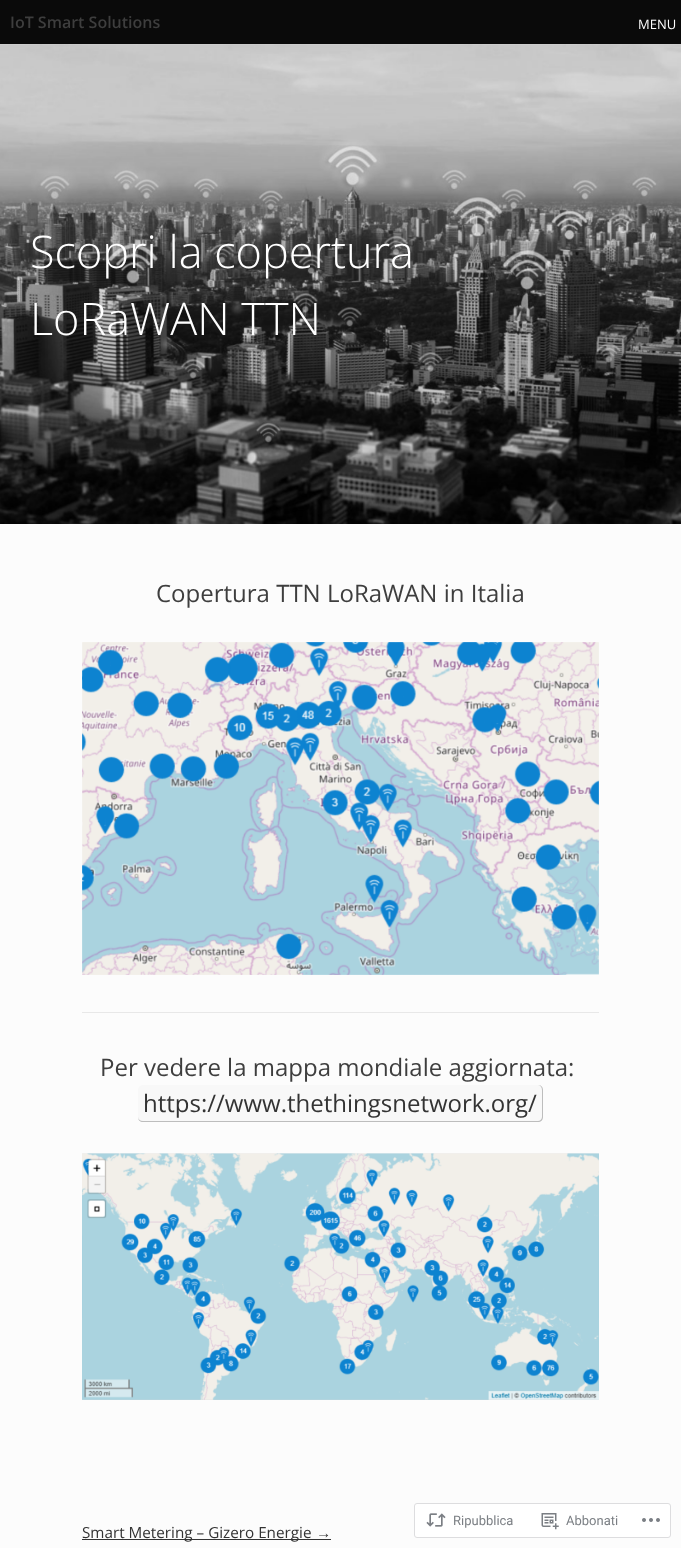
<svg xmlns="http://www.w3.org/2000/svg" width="681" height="1548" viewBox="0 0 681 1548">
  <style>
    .t1 { font: 600 16px Open Sans; fill: #3e3e3e; }
    .t2 { font: 13px Open Sans; fill: #fff; }
    .t3 { font: 300 45px Open Sans; fill: #fff; }
    .t4 { font: 24px Open Sans; fill: #3e3e3e; }
    .t5 { font: 24px Open Sans; fill: #333; }
    .t6 { font: 15.25px Open Sans; fill: #333; }
    .t7 { font: 15.25px Liberation Sans; fill: #333; }
    .t8 { font: 13px Roboto; fill: #7b7f84; }
  </style>
  <rect width="100%" height="100%" fill="#fff"/>
  <rect x="0" y="0" width="681" height="44" fill="#0a0a0a"/>
  <text x="10" y="28" class="t1">IoT Smart Solutions</text>
  <text x="638" y="29" class="t2">MENU</text>
  <image x="0" y="44" width="681" height="480" href="images/1.png"/>
  <text x="30" y="268" class="t3">Scopri la copertura</text>
  <text x="30" y="335" class="t3">LoRaWAN TTN</text>
  <rect x="0" y="524" width="681" height="1024" fill="#fcfcfc"/>
  <text x="156" y="602" class="t4">Copertura TTN LoRaWAN in Italia</text>
  <image x="82" y="642" width="517" height="333" href="images/2.png"/>
  <rect x="82" y="1012" width="517" height="1" fill="#e8e8e8"/>
  <text x="100" y="1076" class="t4">Per vedere la mappa mondiale aggiornata:</text>
  <rect x="138" y="1085" width="405" height="37" rx="5" fill="#f8f8f8"/>
  <path d="M143 1085H538C541 1085 543 1087 543 1090V1117C543 1120 541 1122 538 1122H143C140 1122 138 1120 138 1117V1090C138 1087 140 1085 143 1085ZM143 1085H538C540 1085 542 1087 542 1090V1117C542 1119 540 1121 538 1121H143C140 1121 138 1119 138 1117V1090C138 1087 140 1085 143 1085Z" fill="#bdbdbd" fill-rule="evenodd"/>
  <text x="143" y="1112" class="t5">https://www.thethingsnetwork.org/</text>
  <image x="82" y="1153" width="517" height="247" href="images/3.png"/>
  <rect x="82" y="1539" width="249" height="1" fill="#333"/>
  <text x="82" y="1538" class="t6">Smart Metering – Gizero Energie</text>
  <text x="316" y="1538" class="t7">→</text>
  <rect x="414.5" y="1503.5" width="256" height="34" rx="2.5" fill="#fff" stroke="#dddddf"/>
  <image x="426" y="1513" width="20" height="14" href="images/4.png"/>
  <text x="453" y="1525" class="t8">Ripubblica</text>
  <image x="541" y="1513" width="18" height="17" href="images/5.png"/>
  <text x="566" y="1525" class="t8">Abbonati</text>
  <image x="642" y="1518" width="18" height="4" href="images/6.png"/>
</svg>
